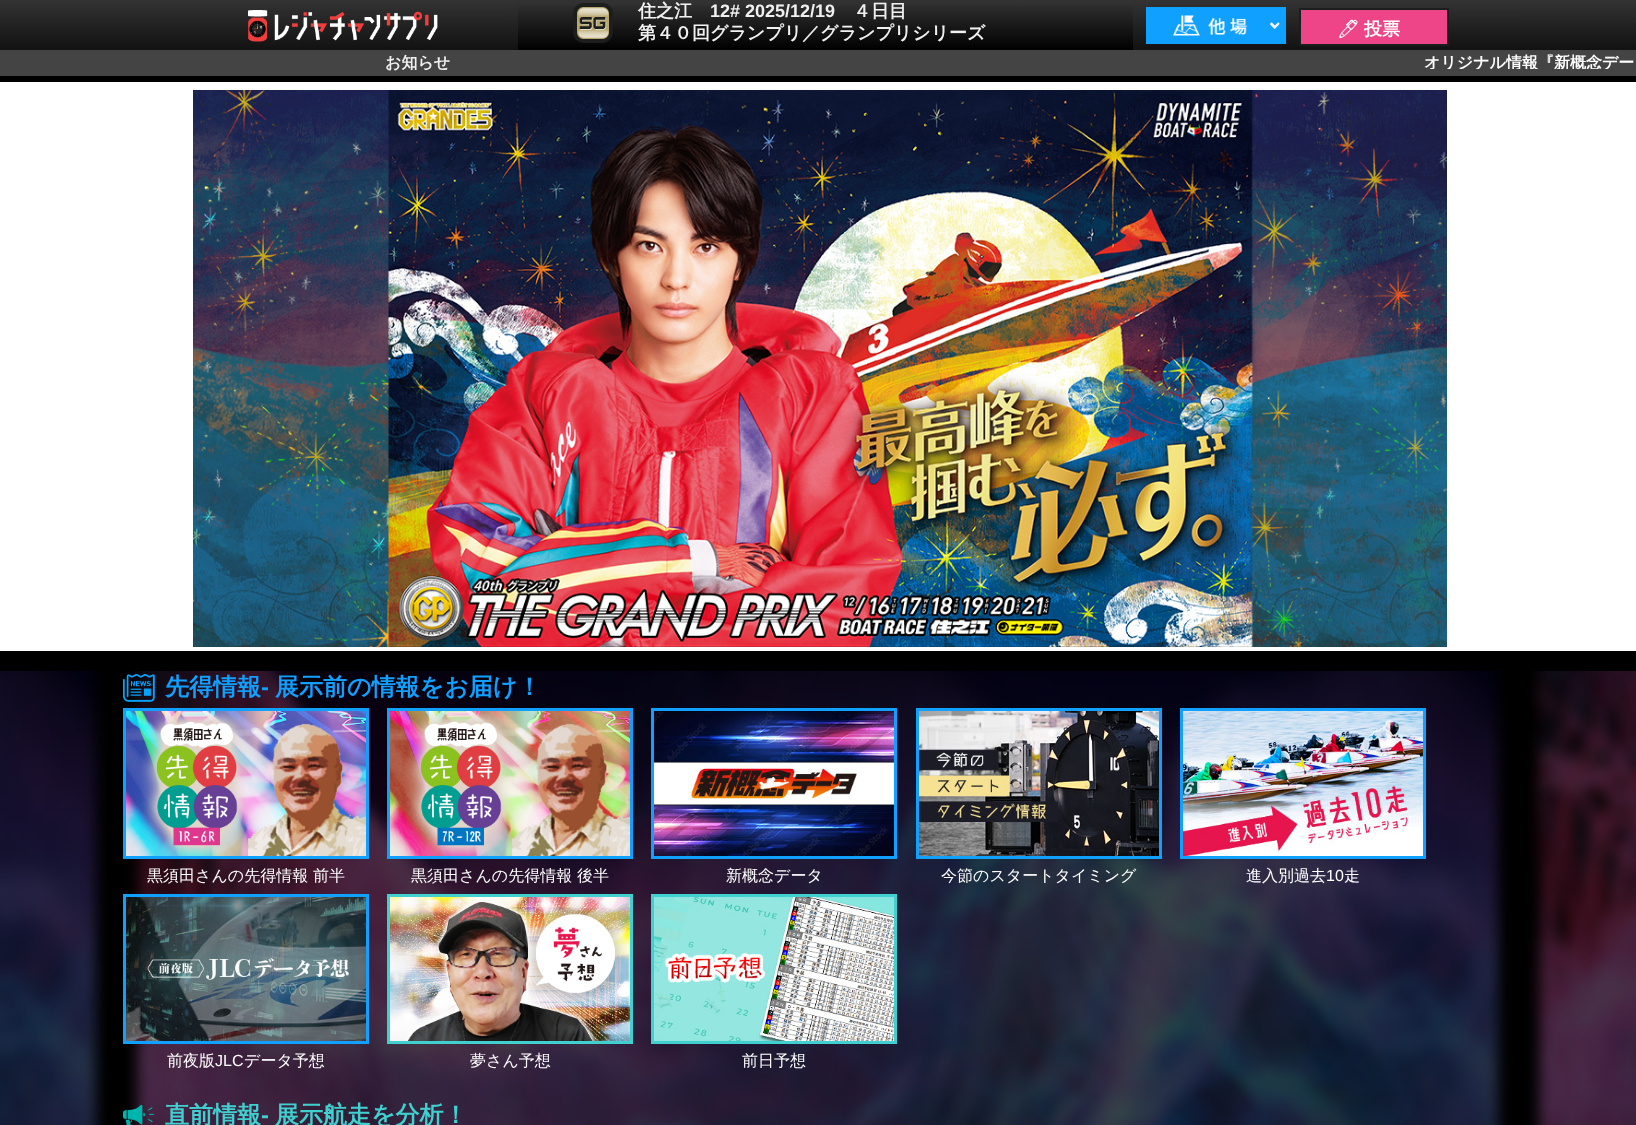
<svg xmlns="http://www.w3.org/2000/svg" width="1636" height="1125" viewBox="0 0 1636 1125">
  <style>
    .t1 { font: bold 18px WenQuanYi Zen Hei; fill: #f0f0f0; }
    .t2 { font: bold 18px Liberation Sans; fill: #f0f0f0; }
    .t3 { font: bold 18px Noto Emoji; fill: #fff; }
    .t4 { font: bold 18px WenQuanYi Zen Hei; fill: #fff; }
    .t5 { font: bold 16px WenQuanYi Zen Hei; fill: #f0f0f0; }
    .t6 { font: bold 16px WenQuanYi Zen Hei; fill: #fff; }
    .t7 { font: bold 24px WenQuanYi Zen Hei; fill: #10a0ff; }
    .t8 { font: bold 24px Liberation Sans; fill: #10a0ff; }
    .t9 { font: 500 16px WenQuanYi Zen Hei; fill: #fff; }
    .t10 { font: 16px Liberation Sans; fill: #fff; }
    .t11 { font: bold 24px WenQuanYi Zen Hei; fill: #40d0d0; }
    .t12 { font: bold 24px Liberation Sans; fill: #40d0d0; }
  </style>
  <defs>
    <linearGradient id="g1" gradientUnits="userSpaceOnUse" x1="818" y1="0" x2="818" y2="76"><stop offset="0" stop-color="#333"/><stop offset="1" stop-color="#000"/></linearGradient>
    <linearGradient id="g2" gradientUnits="userSpaceOnUse" x1="826" y1="0" x2="826" y2="50"><stop offset="0" stop-color="#333"/><stop offset="1" stop-color="#000"/></linearGradient>
    <clipPath id="clip1"><rect x="468" y="50" width="1168" height="19"/></clipPath>
  </defs>
  <rect width="100%" height="100%" fill="#000"/>
  <rect x="0" y="0" width="1636" height="50" fill="url(#g1)"/>
  <image x="248" y="10" width="190" height="32" href="images/1.png"/>
  <rect x="518" y="6" width="615" height="44" fill="url(#g2)"/>
  <image x="573" y="3" width="40" height="40" href="images/2.png"/>
  <text x="638" y="17" class="t1">住之江</text>
  <text x="710" y="17" class="t2">12# 2025/12/19</text>
  <text x="853" y="17" class="t1">４日目</text>
  <text x="638" y="39" class="t1">第４０回グランプリ／グランプリシリーズ</text>
  <rect x="1146" y="7" width="140" height="37" fill="#10a0ff"/>
  <image x="1173" y="15" width="107" height="21" href="images/3.png"/>
  <path d="M1270.5 23.5L1274.5 27.5L1278.5 23.5" fill="none" stroke="#f0f0f0" stroke-width="2"/>
  <rect x="1301" y="10" width="146" height="34" fill="#e48"/>
  <rect x="1300" y="9" width="148" height="36" fill="none" stroke="#1c1d1d" stroke-width="2"/>
  <text x="1337" y="35" class="t3">🖊</text>
  <text x="1364" y="35" class="t4">投票</text>
  <rect x="0" y="50" width="1636" height="26" fill="#444"/>
  <text x="385" y="68" class="t5">お知らせ</text>
  <g clip-path="url(#clip1)">
    <text x="1424" y="68" class="t6">オリジナル情報『新概念デー</text>
  </g>
  <rect x="0" y="82" width="1636" height="569" fill="#fff"/>
  <image x="193" y="90" width="1254" height="557" href="images/4.png"/>
  <image x="0" y="671" width="1636" height="454" href="images/5.png"/>
  <image x="123" y="674" width="32" height="28" href="images/6.png"/>
  <text x="165" y="695" class="t7">先得情報</text>
  <text x="261" y="695" class="t8">-</text>
  <text x="275" y="695" class="t7">展示前の情報をお届け！</text>
  <rect x="124.5" y="709.5" width="243" height="148" fill="none" stroke="#10a0ff" stroke-width="3"/>
  <image x="126" y="711" width="240" height="145" href="images/7.png"/>
  <text x="147" y="881" class="t9">黒須田さんの先得情報 前半</text>
  <rect x="388.5" y="709.5" width="243" height="148" fill="none" stroke="#10a0ff" stroke-width="3"/>
  <image x="390" y="711" width="240" height="145" href="images/8.png"/>
  <text x="411" y="881" class="t9">黒須田さんの先得情報 後半</text>
  <rect x="652.5" y="709.5" width="243" height="148" fill="none" stroke="#10a0ff" stroke-width="3"/>
  <image x="654" y="711" width="240" height="145" href="images/9.png"/>
  <text x="726" y="881" class="t9">新概念データ</text>
  <rect x="917.5" y="709.5" width="243" height="148" fill="none" stroke="#10a0ff" stroke-width="3"/>
  <image x="919" y="711" width="240" height="145" href="images/10.png"/>
  <text x="941" y="881" class="t9">今節のスタートタイミング</text>
  <rect x="1181.5" y="709.5" width="243" height="148" fill="none" stroke="#10a0ff" stroke-width="3"/>
  <image x="1183" y="711" width="240" height="145" href="images/11.png"/>
  <text x="1246" y="881" class="t9">進入別過去</text>
  <text x="1326" y="881" class="t10">10</text>
  <text x="1344" y="881" class="t9">走</text>
  <rect x="124.5" y="895.5" width="243" height="147" fill="none" stroke="#10a0ff" stroke-width="3"/>
  <image x="126" y="897" width="240" height="144" href="images/12.png"/>
  <text x="167" y="1066" class="t9">前夜版</text>
  <text x="215" y="1066" class="t10">JLC</text>
  <text x="244" y="1066" class="t9">データ予想</text>
  <rect x="388.5" y="895.5" width="243" height="147" fill="none" stroke="#40d0d0" stroke-width="3"/>
  <image x="390" y="897" width="240" height="144" href="images/13.png"/>
  <text x="470" y="1066" class="t9">夢さん予想</text>
  <rect x="652.5" y="895.5" width="243" height="147" fill="none" stroke="#40d0d0" stroke-width="3"/>
  <image x="654" y="897" width="240" height="144" href="images/14.png"/>
  <text x="742" y="1066" class="t9">前日予想</text>
  <image x="123" y="1104" width="31" height="21" href="images/15.png"/>
  <text x="165" y="1123" class="t11">直前情報</text>
  <text x="261" y="1123" class="t12">-</text>
  <text x="275" y="1123" class="t11">展示航走を分析！</text>
</svg>
